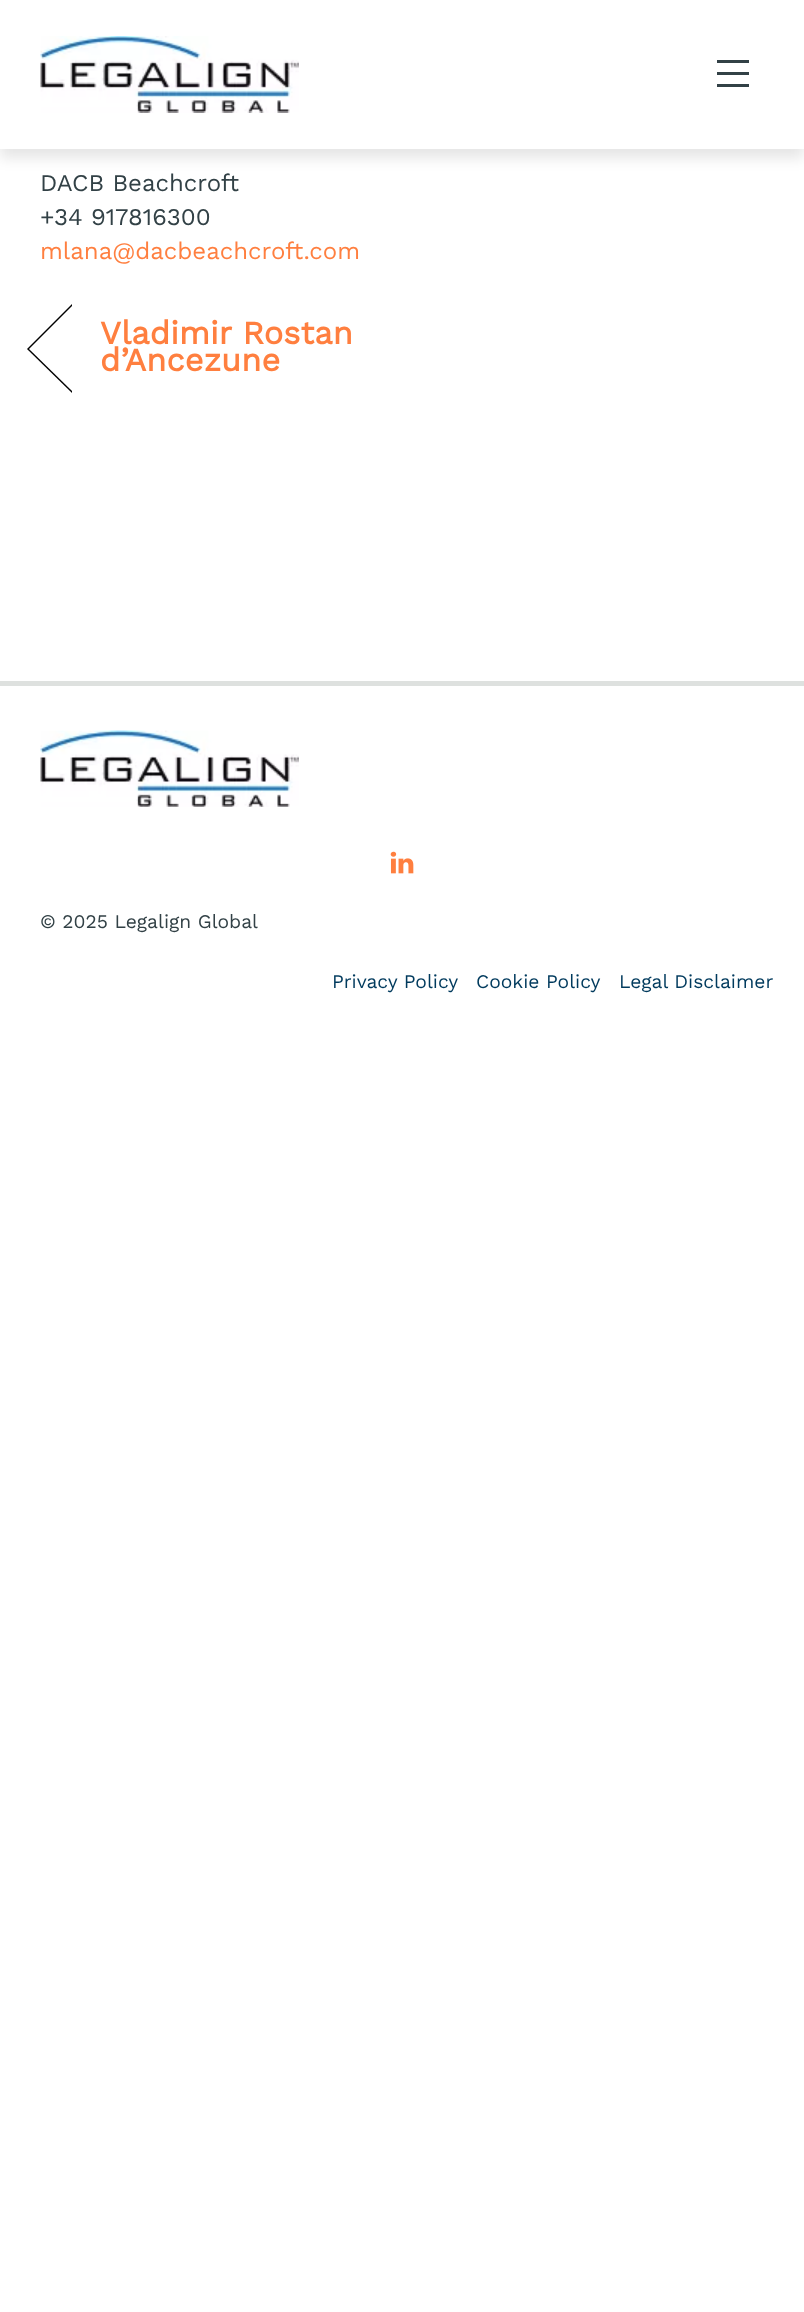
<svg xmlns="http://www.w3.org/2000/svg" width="804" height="2312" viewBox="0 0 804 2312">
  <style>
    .t1 { font: 24px Work Sans; fill: #324146; }
    .t2 { font: 24px Work Sans; fill: #ff7f3f; }
    .t3 { font: bold 32.5px Work Sans; letter-spacing: 0.1px; fill: #ff7f3f; }
    .t4 { font: 19.25px Work Sans; fill: #324146; }
    .t5 { font: 19.25px Work Sans; fill: #003a5d; }
  </style>
  <rect width="100%" height="100%" fill="#fff"/>
  <rect x="0" y="9" width="804" height="149" fill="#0000001a" filter="blur(7px)"/>
  <rect x="0" y="0" width="804" height="149" fill="#fff"/>
  <image x="40" y="36" width="259" height="77" href="images/1.png"/>
  <rect x="717" y="84" width="32" height="3" fill="#324146"/>
  <rect x="717" y="60" width="32" height="3" fill="#324146"/>
  <rect x="717" y="72" width="32" height="3" fill="#324146"/>
  <text x="40" y="191" class="t1">DACB Beachcroft</text>
  <text x="40" y="225" class="t1">+34 917816300</text>
  <text x="40" y="259" class="t2">mlana@dacbeachcroft.com</text>
  <path d="M72 393L27 349H29L72 391Z" fill="#000"/>
  <path d="M27 349L72 304V306L29 349Z" fill="#000"/>
  <text x="100" y="344" class="t3">Vladimir Rostan</text>
  <text x="100" y="371" class="t3">d’Ancezune</text>
  <rect x="0" y="681" width="804" height="5" fill="#dee1df"/>
  <image x="40" y="730" width="259" height="77" href="images/2.png"/>
  <image x="390" y="851" width="24" height="23" href="images/3.png"/>
  <text x="40" y="928" class="t4">© 2025 Legalign Global</text>
  <text x="332" y="988" class="t5">Privacy Policy</text>
  <text x="476" y="988" class="t5">Cookie Policy</text>
  <text x="619" y="988" class="t5">Legal Disclaimer</text>
</svg>
